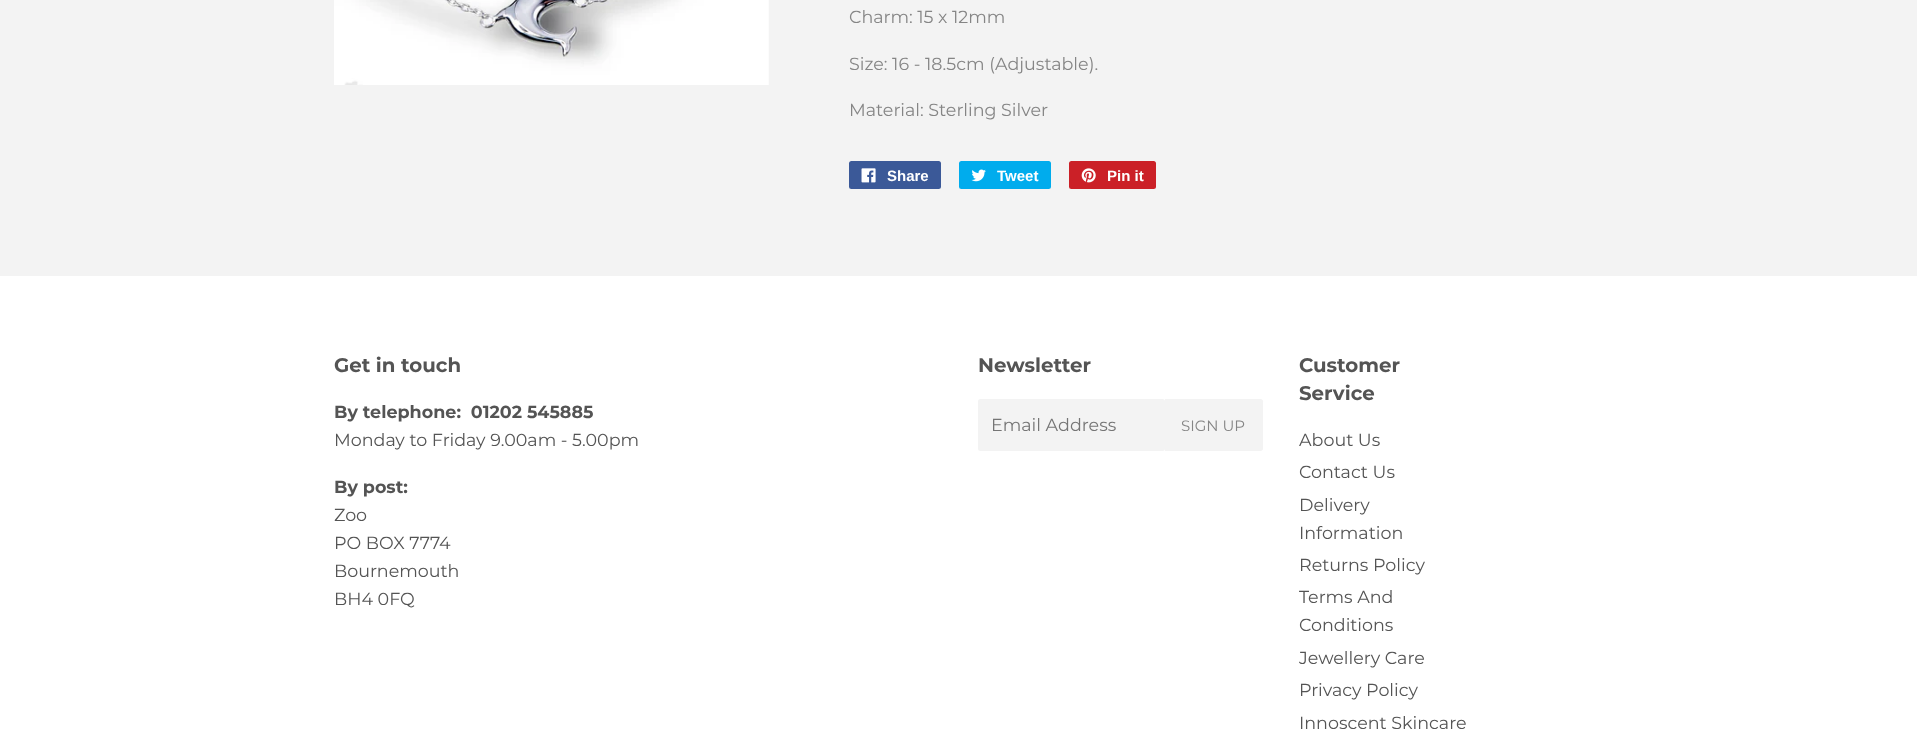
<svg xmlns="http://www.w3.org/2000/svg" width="1917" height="741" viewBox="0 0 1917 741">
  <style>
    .t1 { font: 17.5px Montserrat; fill: #858585; }
    .t2 { font: bold 15px Liberation Sans; fill: #fff; }
    .t3 { font: bold 19.75px Montserrat; fill: #545454; }
    .t4 { font: bold 17.5px Montserrat; fill: #545454; }
    .t5 { font: 17.5px Montserrat; fill: #545454; }
    .t6 { font: 17.5px Montserrat; fill: #757575; }
    .t7 { font: 15px Montserrat; fill: #858585; }
  </style>
  <rect width="100%" height="100%" fill="#f3f3f3"/>
  <image x="334" y="0" width="435" height="85" href="images/1.png"/>
  <text x="849" y="23" class="t1">Charm: 15 x 12mm</text>
  <text x="849" y="70" class="t1">Size: 16 - 18.5cm (Adjustable).</text>
  <text x="849" y="116" class="t1">Material: Sterling Silver</text>
  <rect x="849" y="161" width="92" height="28" rx="2.5" fill="#3b5998"/>
  <image x="861" y="168" width="15" height="15" href="images/2.png"/>
  <text x="887" y="181" class="t2">Share</text>
  <rect x="959" y="161" width="92" height="28" rx="2.5" fill="#00aced"/>
  <image x="971" y="169" width="15" height="13" href="images/3.png"/>
  <text x="997" y="181" class="t2">Tweet</text>
  <rect x="1069" y="161" width="87" height="28" rx="2.5" fill="#cb2027"/>
  <image x="1081" y="168" width="15" height="15" href="images/4.png"/>
  <text x="1107" y="181" class="t2">Pin it</text>
  <rect x="0" y="276" width="1917" height="465" fill="#fff"/>
  <text x="334" y="372" class="t3">Get in touch</text>
  <text x="334" y="418" class="t4" xml:space="preserve">By telephone:  01202 545885</text>
  <text x="334" y="446" class="t5">Monday to Friday 9.00am - 5.00pm</text>
  <text x="334" y="493" class="t4">By post:</text>
  <text x="334" y="521" class="t5">Zoo</text>
  <text x="334" y="549" class="t5">PO BOX 7774</text>
  <text x="334" y="577" class="t5">Bournemouth</text>
  <text x="334" y="605" class="t5">BH4 0FQ</text>
  <text x="978" y="372" class="t3">Newsletter</text>
  <rect x="978" y="399" width="187" height="52" rx="2.5" fill="#f3f3f3"/>
  <text x="991" y="431" class="t6">Email Address</text>
  <path d="M1165 399H1260.5C1262 399 1263 400 1263 401.5V448.5C1263 450 1262 451 1260.5 451H1165Z" fill="#f3f3f3"/>
  <text x="1181" y="431" class="t7">SIGN UP</text>
  <text x="1299" y="372" class="t3">Customer</text>
  <text x="1299" y="400" class="t3">Service</text>
  <text x="1299" y="446" class="t5">About Us</text>
  <text x="1299" y="478" class="t5">Contact Us</text>
  <text x="1299" y="511" class="t5">Delivery</text>
  <text x="1299" y="539" class="t5">Information</text>
  <text x="1299" y="571" class="t5">Returns Policy</text>
  <text x="1299" y="603" class="t5">Terms And</text>
  <text x="1299" y="631" class="t5">Conditions</text>
  <text x="1299" y="664" class="t5">Jewellery Care</text>
  <text x="1299" y="696" class="t5">Privacy Policy</text>
  <text x="1299" y="729" class="t5">Innoscent Skincare</text>
</svg>
